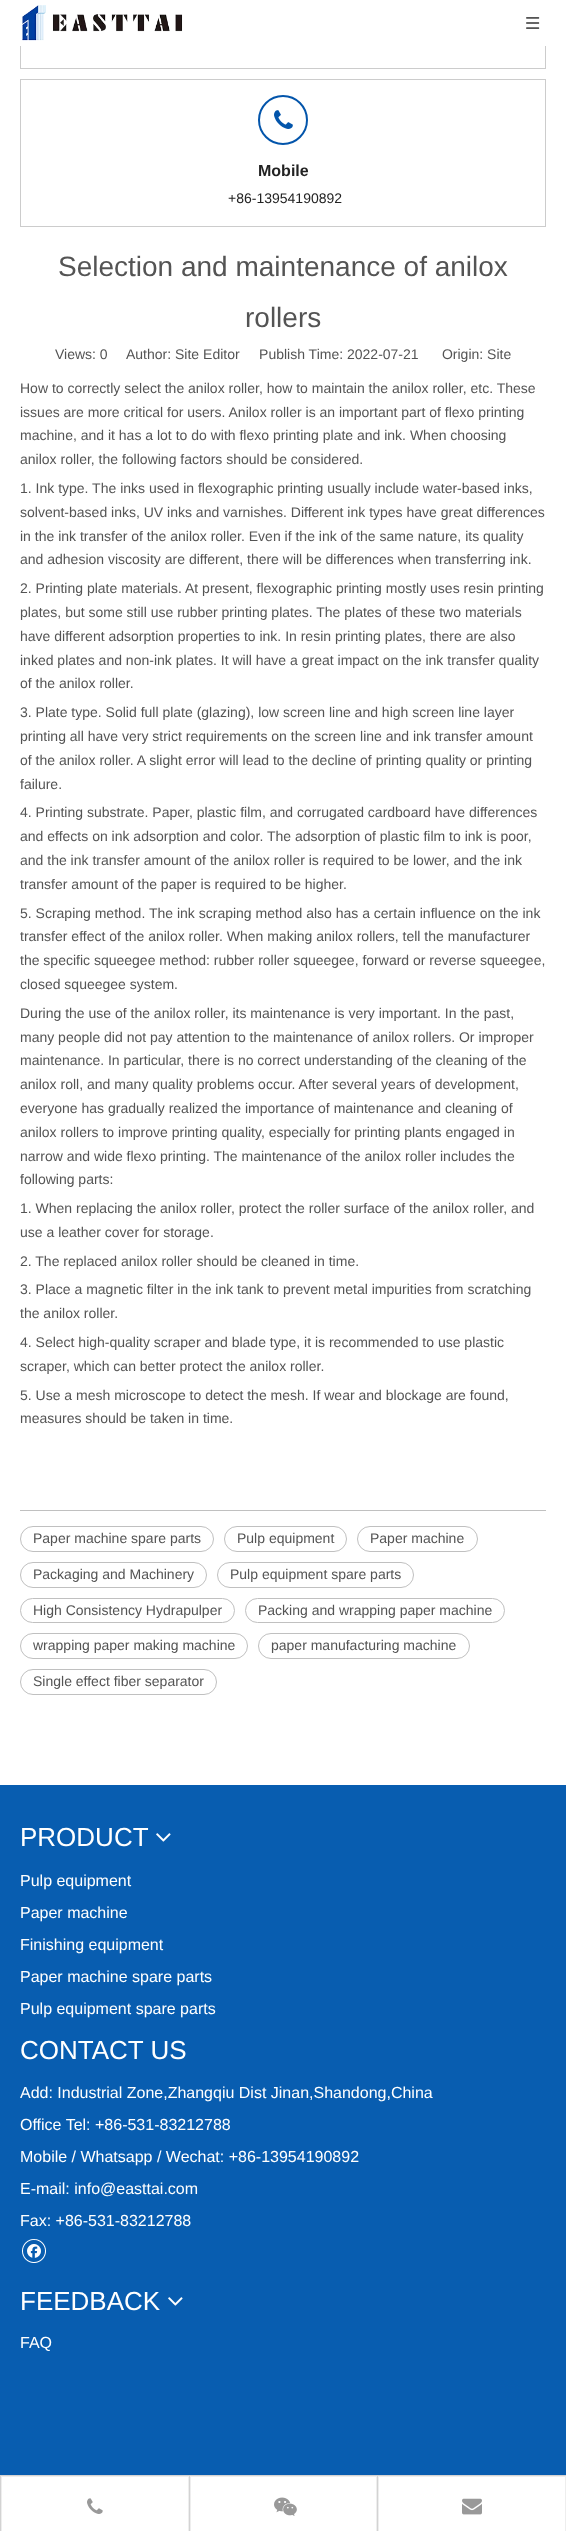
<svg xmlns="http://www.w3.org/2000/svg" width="566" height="2531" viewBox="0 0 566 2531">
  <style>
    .t1 { font: bold 16px Liberation Sans; fill: #222; }
    .t2 { font: 14px Liberation Sans; fill: #222; }
    .t3 { font: 28px Liberation Sans; fill: #545454; }
    .t4 { font: 14px Liberation Sans; fill: #545454; }
    .t5 { font: 26px Liberation Sans; fill: #fff; }
    .t6 { font: 16px Liberation Sans; fill: #fff; }
  </style>
  <rect width="100%" height="100%" fill="#fff"/>
  <image x="22" y="5" width="161" height="36" href="images/1.png"/>
  <image x="526" y="17" width="14" height="12" href="images/2.png"/>
  <rect x="545" y="46" width="1" height="23" fill="#ccc"/>
  <rect x="20" y="68" width="526" height="1" fill="#ccc"/>
  <rect x="20" y="46" width="1" height="23" fill="#ccc"/>
  <rect x="20" y="79" width="526" height="1" fill="#ccc"/>
  <rect x="545" y="79" width="1" height="148" fill="#ccc"/>
  <rect x="20" y="79" width="1" height="71" fill="#ccc"/>
  <circle cx="283" cy="120" r="24" fill="none" stroke="#0355ab" stroke-width="2"/>
  <image x="274" y="110" width="19" height="19" href="images/3.png"/>
  <rect x="20" y="226" width="526" height="1" fill="#ccc"/>
  <rect x="20" y="150" width="1" height="77" fill="#ccc"/>
  <text x="258" y="176" class="t1">Mobile</text>
  <text x="228" y="203" class="t2">+86-13954190892</text>
  <text x="58" y="276" class="t3">Selection and maintenance of anilox</text>
  <text x="245" y="327" class="t3">rollers</text>
  <text x="55" y="359" class="t4">Views: 0</text>
  <text x="126" y="359" class="t4" xml:space="preserve">Author: Site Editor     Publish Time: 2022-07-21      Origin: Site</text>
  <text x="20" y="393" class="t4">How to correctly select the anilox roller, how to maintain the anilox roller, etc. These</text>
  <text x="20" y="417" class="t4">issues are more critical for users. Anilox roller is an important part of flexo printing</text>
  <text x="20" y="440" class="t4">machine, and it has a lot to do with flexo printing plate and ink. When choosing</text>
  <text x="20" y="464" class="t4">anilox roller, the following factors should be considered.</text>
  <text x="20" y="493" class="t4">1. Ink type. The inks used in flexographic printing usually include water-based inks,</text>
  <text x="20" y="517" class="t4">solvent-based inks, UV inks and varnishes. Different ink types have great differences</text>
  <text x="20" y="541" class="t4">in the ink transfer of the anilox roller. Even if the ink of the same nature, its quality</text>
  <text x="20" y="564" class="t4">and adhesion viscosity are different, there will be differences when transferring ink.</text>
  <text x="20" y="593" class="t4">2. Printing plate materials. At present, flexographic printing mostly uses resin printing</text>
  <text x="20" y="617" class="t4">plates, but some still use rubber printing plates. The plates of these two materials</text>
  <text x="20" y="641" class="t4">have different adsorption properties to ink. In resin printing plates, there are also</text>
  <text x="20" y="665" class="t4">inked plates and non-ink plates. It will have a great impact on the ink transfer quality</text>
  <text x="20" y="688" class="t4">of the anilox roller.</text>
  <text x="20" y="717" class="t4">3. Plate type. Solid full plate (glazing), low screen line and high screen line layer</text>
  <text x="20" y="741" class="t4">printing all have very strict requirements on the screen line and ink transfer amount</text>
  <text x="20" y="765" class="t4">of the anilox roller. A slight error will lead to the decline of printing quality or printing</text>
  <text x="20" y="789" class="t4">failure.</text>
  <text x="20" y="817" class="t4">4. Printing substrate. Paper, plastic film, and corrugated cardboard have differences</text>
  <text x="20" y="841" class="t4">and effects on ink adsorption and color. The adsorption of plastic film to ink is poor,</text>
  <text x="20" y="865" class="t4">and the ink transfer amount of the anilox roller is required to be lower, and the ink</text>
  <text x="20" y="889" class="t4">transfer amount of the paper is required to be higher.</text>
  <text x="20" y="918" class="t4">5. Scraping method. The ink scraping method also has a certain influence on the ink</text>
  <text x="20" y="941" class="t4">transfer effect of the anilox roller. When making anilox rollers, tell the manufacturer</text>
  <text x="20" y="965" class="t4">the specific squeegee method: rubber roller squeegee, forward or reverse squeegee,</text>
  <text x="20" y="989" class="t4">closed squeegee system.</text>
  <text x="20" y="1018" class="t4">During the use of the anilox roller, its maintenance is very important. In the past,</text>
  <text x="20" y="1042" class="t4">many people did not pay attention to the maintenance of anilox rollers. Or improper</text>
  <text x="20" y="1065" class="t4">maintenance. In particular, there is no correct understanding of the cleaning of the</text>
  <text x="20" y="1089" class="t4">anilox roll, and many quality problems occur. After several years of development,</text>
  <text x="20" y="1113" class="t4">everyone has gradually realized the importance of maintenance and cleaning of</text>
  <text x="20" y="1137" class="t4">anilox rollers to improve printing quality, especially for printing plants engaged in</text>
  <text x="20" y="1161" class="t4">narrow and wide flexo printing. The maintenance of the anilox roller includes the</text>
  <text x="20" y="1184" class="t4">following parts:</text>
  <text x="20" y="1213" class="t4">1. When replacing the anilox roller, protect the roller surface of the anilox roller, and</text>
  <text x="20" y="1237" class="t4">use a leather cover for storage.</text>
  <text x="20" y="1266" class="t4">2. The replaced anilox roller should be cleaned in time.</text>
  <text x="20" y="1294" class="t4">3. Place a magnetic filter in the ink tank to prevent metal impurities from scratching</text>
  <text x="20" y="1318" class="t4">the anilox roller.</text>
  <text x="20" y="1347" class="t4">4. Select high-quality scraper and blade type, it is recommended to use plastic</text>
  <text x="20" y="1371" class="t4">scraper, which can better protect the anilox roller.</text>
  <text x="20" y="1400" class="t4">5. Use a mesh microscope to detect the mesh. If wear and blockage are found,</text>
  <text x="20" y="1423" class="t4">measures should be taken in time.</text>
  <rect x="20" y="1510" width="526" height="1" fill="#c0c0c0"/>
  <rect x="20.5" y="1526.5" width="193" height="25" rx="12.5" fill="none" stroke="#c0c0c0"/>
  <text x="33" y="1543" class="t4">Paper machine spare parts</text>
  <rect x="224.5" y="1526.5" width="122" height="25" rx="12.5" fill="none" stroke="#c0c0c0"/>
  <text x="237" y="1543" class="t4">Pulp equipment</text>
  <rect x="357.5" y="1526.5" width="120" height="25" rx="12.5" fill="none" stroke="#c0c0c0"/>
  <text x="370" y="1543" class="t4">Paper machine</text>
  <rect x="20.5" y="1562.5" width="186" height="25" rx="12.5" fill="none" stroke="#c0c0c0"/>
  <text x="33" y="1579" class="t4">Packaging and Machinery</text>
  <rect x="217.5" y="1562.5" width="196" height="25" rx="12.5" fill="none" stroke="#c0c0c0"/>
  <text x="230" y="1579" class="t4">Pulp equipment spare parts</text>
  <rect x="20.5" y="1598.5" width="214" height="24" rx="12" fill="none" stroke="#c0c0c0"/>
  <text x="33" y="1615" class="t4">High Consistency Hydrapulper</text>
  <rect x="245.5" y="1598.5" width="259" height="24" rx="12" fill="none" stroke="#c0c0c0"/>
  <text x="258" y="1615" class="t4">Packing and wrapping paper machine</text>
  <rect x="20.5" y="1633.5" width="227" height="25" rx="12.5" fill="none" stroke="#c0c0c0"/>
  <text x="33" y="1650" class="t4">wrapping paper making machine</text>
  <rect x="258.5" y="1633.5" width="211" height="25" rx="12.5" fill="none" stroke="#c0c0c0"/>
  <text x="271" y="1650" class="t4">paper manufacturing machine</text>
  <rect x="20.5" y="1669.5" width="196" height="25" rx="12.5" fill="none" stroke="#c0c0c0"/>
  <text x="33" y="1686" class="t4">Single effect fiber separator</text>
  <rect x="0" y="1785" width="566" height="690" fill="#085db0"/>
  <text x="20" y="1846" class="t5">PRODUCT</text>
  <image x="156" y="1833" width="15" height="9" href="images/4.png"/>
  <text x="20" y="1886" class="t6">Pulp equipment</text>
  <text x="20" y="1918" class="t6">Paper machine</text>
  <text x="20" y="1950" class="t6">Finishing equipment</text>
  <text x="20" y="1982" class="t6">Paper machine spare parts</text>
  <text x="20" y="2014" class="t6">Pulp equipment spare parts</text>
  <text x="20" y="2059" class="t5">CONTACT US</text>
  <text x="20" y="2098" class="t6">Add: Industrial Zone,Zhangqiu Dist Jinan,Shandong,China</text>
  <text x="20" y="2130" class="t6">Office Tel: +86-531-83212788</text>
  <text x="20" y="2162" class="t6">Mobile / Whatsapp / Wechat: +86-13954190892</text>
  <text x="20" y="2194" class="t6">E-mail: info@easttai.com</text>
  <text x="20" y="2226" class="t6">Fax: +86-531-83212788</text>
  <image x="22" y="2239" width="24" height="24" href="images/5.png"/>
  <text x="20" y="2310" class="t5">FEEDBACK</text>
  <image x="168" y="2297" width="15" height="9" href="images/4.png"/>
  <text x="20" y="2348" class="t6">FAQ</text>
  <rect x="0" y="2475" width="566" height="1" fill="#d3d3d3"/>
  <rect x="0" y="2476" width="1" height="55" fill="#d3d3d3"/>
  <rect x="1" y="2476" width="188" height="1" fill="#eee"/>
  <rect x="188" y="2476" width="1" height="55" fill="#eee"/>
  <rect x="1" y="2476" width="1" height="55" fill="#eee"/>
  <image x="87" y="2498" width="16" height="16" href="images/6.png"/>
  <rect x="189" y="2476" width="1" height="55" fill="#d3d3d3"/>
  <rect x="190" y="2476" width="187" height="1" fill="#eee"/>
  <rect x="376" y="2476" width="1" height="55" fill="#eee"/>
  <rect x="190" y="2476" width="1" height="55" fill="#eee"/>
  <image x="274" y="2497" width="23" height="19" href="images/7.png"/>
  <rect x="377" y="2476" width="1" height="55" fill="#d3d3d3"/>
  <rect x="378.5" y="2476.5" width="187" height="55" fill="none" stroke="#eee"/>
  <image x="462" y="2498" width="20" height="17" href="images/8.png"/>
</svg>
